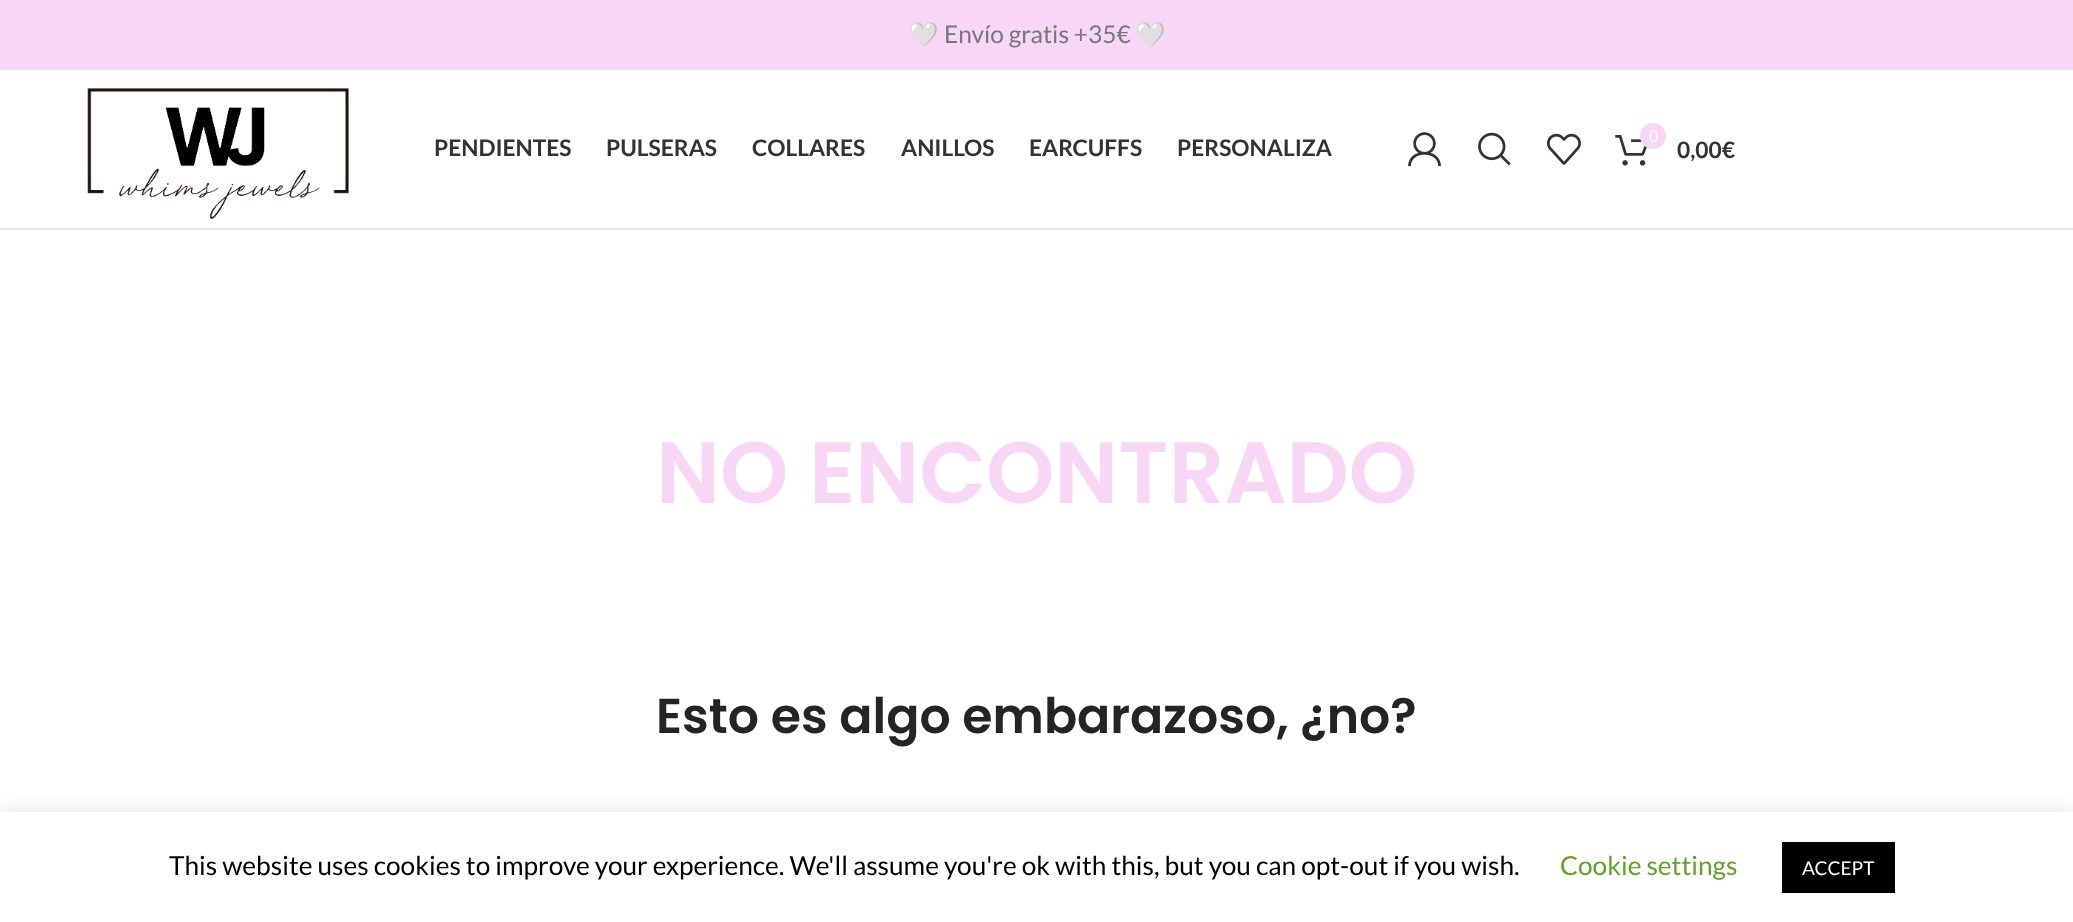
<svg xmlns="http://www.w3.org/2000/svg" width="2073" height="922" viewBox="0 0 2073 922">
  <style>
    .t1 { font: 24.5px Noto Color Emoji; fill: #777; }
    .t2 { font: 24.5px Lato; fill: #777; }
    .t3 { font: bold 22.75px Lato; fill: #333; }
    .t4 { font: 16px Lato; fill: #fff; }
    .t5 { font: 600 87px Poppins; fill: #f8d7f6; }
    .t6 { font: 600 49px Poppins; fill: #242424; }
    .t7 { font: 26.25px Lato; fill: #000; }
    .t8 { font: 26.25px Lato; fill: #62a329; }
    .t9 { font: 19px Lato; fill: #fff; }
  </style>
  <rect width="100%" height="100%" fill="#fff"/>
  <rect x="0" y="0" width="2073" height="70" fill="#f8d7f6"/>
  <text x="908" y="43" class="t1">🤍</text>
  <text x="944" y="43" class="t2">Envío gratis +35€</text>
  <text x="1135" y="43" class="t1">🤍</text>
  <rect x="0" y="228" width="2073" height="2" fill="#e6e6e6"/>
  <image x="87" y="88" width="262" height="131" href="images/1.png"/>
  <text x="434" y="156" class="t3">PENDIENTES</text>
  <text x="606" y="156" class="t3">PULSERAS</text>
  <text x="752" y="156" class="t3">COLLARES</text>
  <text x="901" y="156" class="t3">ANILLOS</text>
  <text x="1029" y="156" class="t3">EARCUFFS</text>
  <text x="1177" y="156" class="t3">PERSONALIZA</text>
  <image x="1408" y="132" width="33" height="35" href="images/2.png"/>
  <image x="1478" y="132" width="33" height="34" href="images/3.png"/>
  <image x="1546" y="133" width="35" height="32" href="images/4.png"/>
  <image x="1615" y="135" width="32" height="31" href="images/5.png"/>
  <circle cx="1653" cy="136" r="13" fill="#f8d7f6"/>
  <text x="1649" y="142" class="t4">0</text>
  <text x="1677" y="158" class="t3">0,00€</text>
  <text x="656" y="503" class="t5">NO ENCONTRADO</text>
  <text x="656" y="733" class="t6">Esto es algo embarazoso, ¿no?</text>
  <rect x="0" y="810" width="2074" height="111" fill="#acabab4d" filter="blur(9px)"/>
  <rect x="0" y="812" width="2073" height="110" fill="#fff"/>
  <text x="169" y="875" class="t7">This website uses cookies to improve your experience. We'll assume you're ok with this, but you can opt-out if you wish.</text>
  <text x="1560" y="875" class="t8">Cookie settings</text>
  <rect x="1782" y="842" width="113" height="51" fill="#000"/>
  <text x="1802" y="875" class="t9">ACCEPT</text>
</svg>
